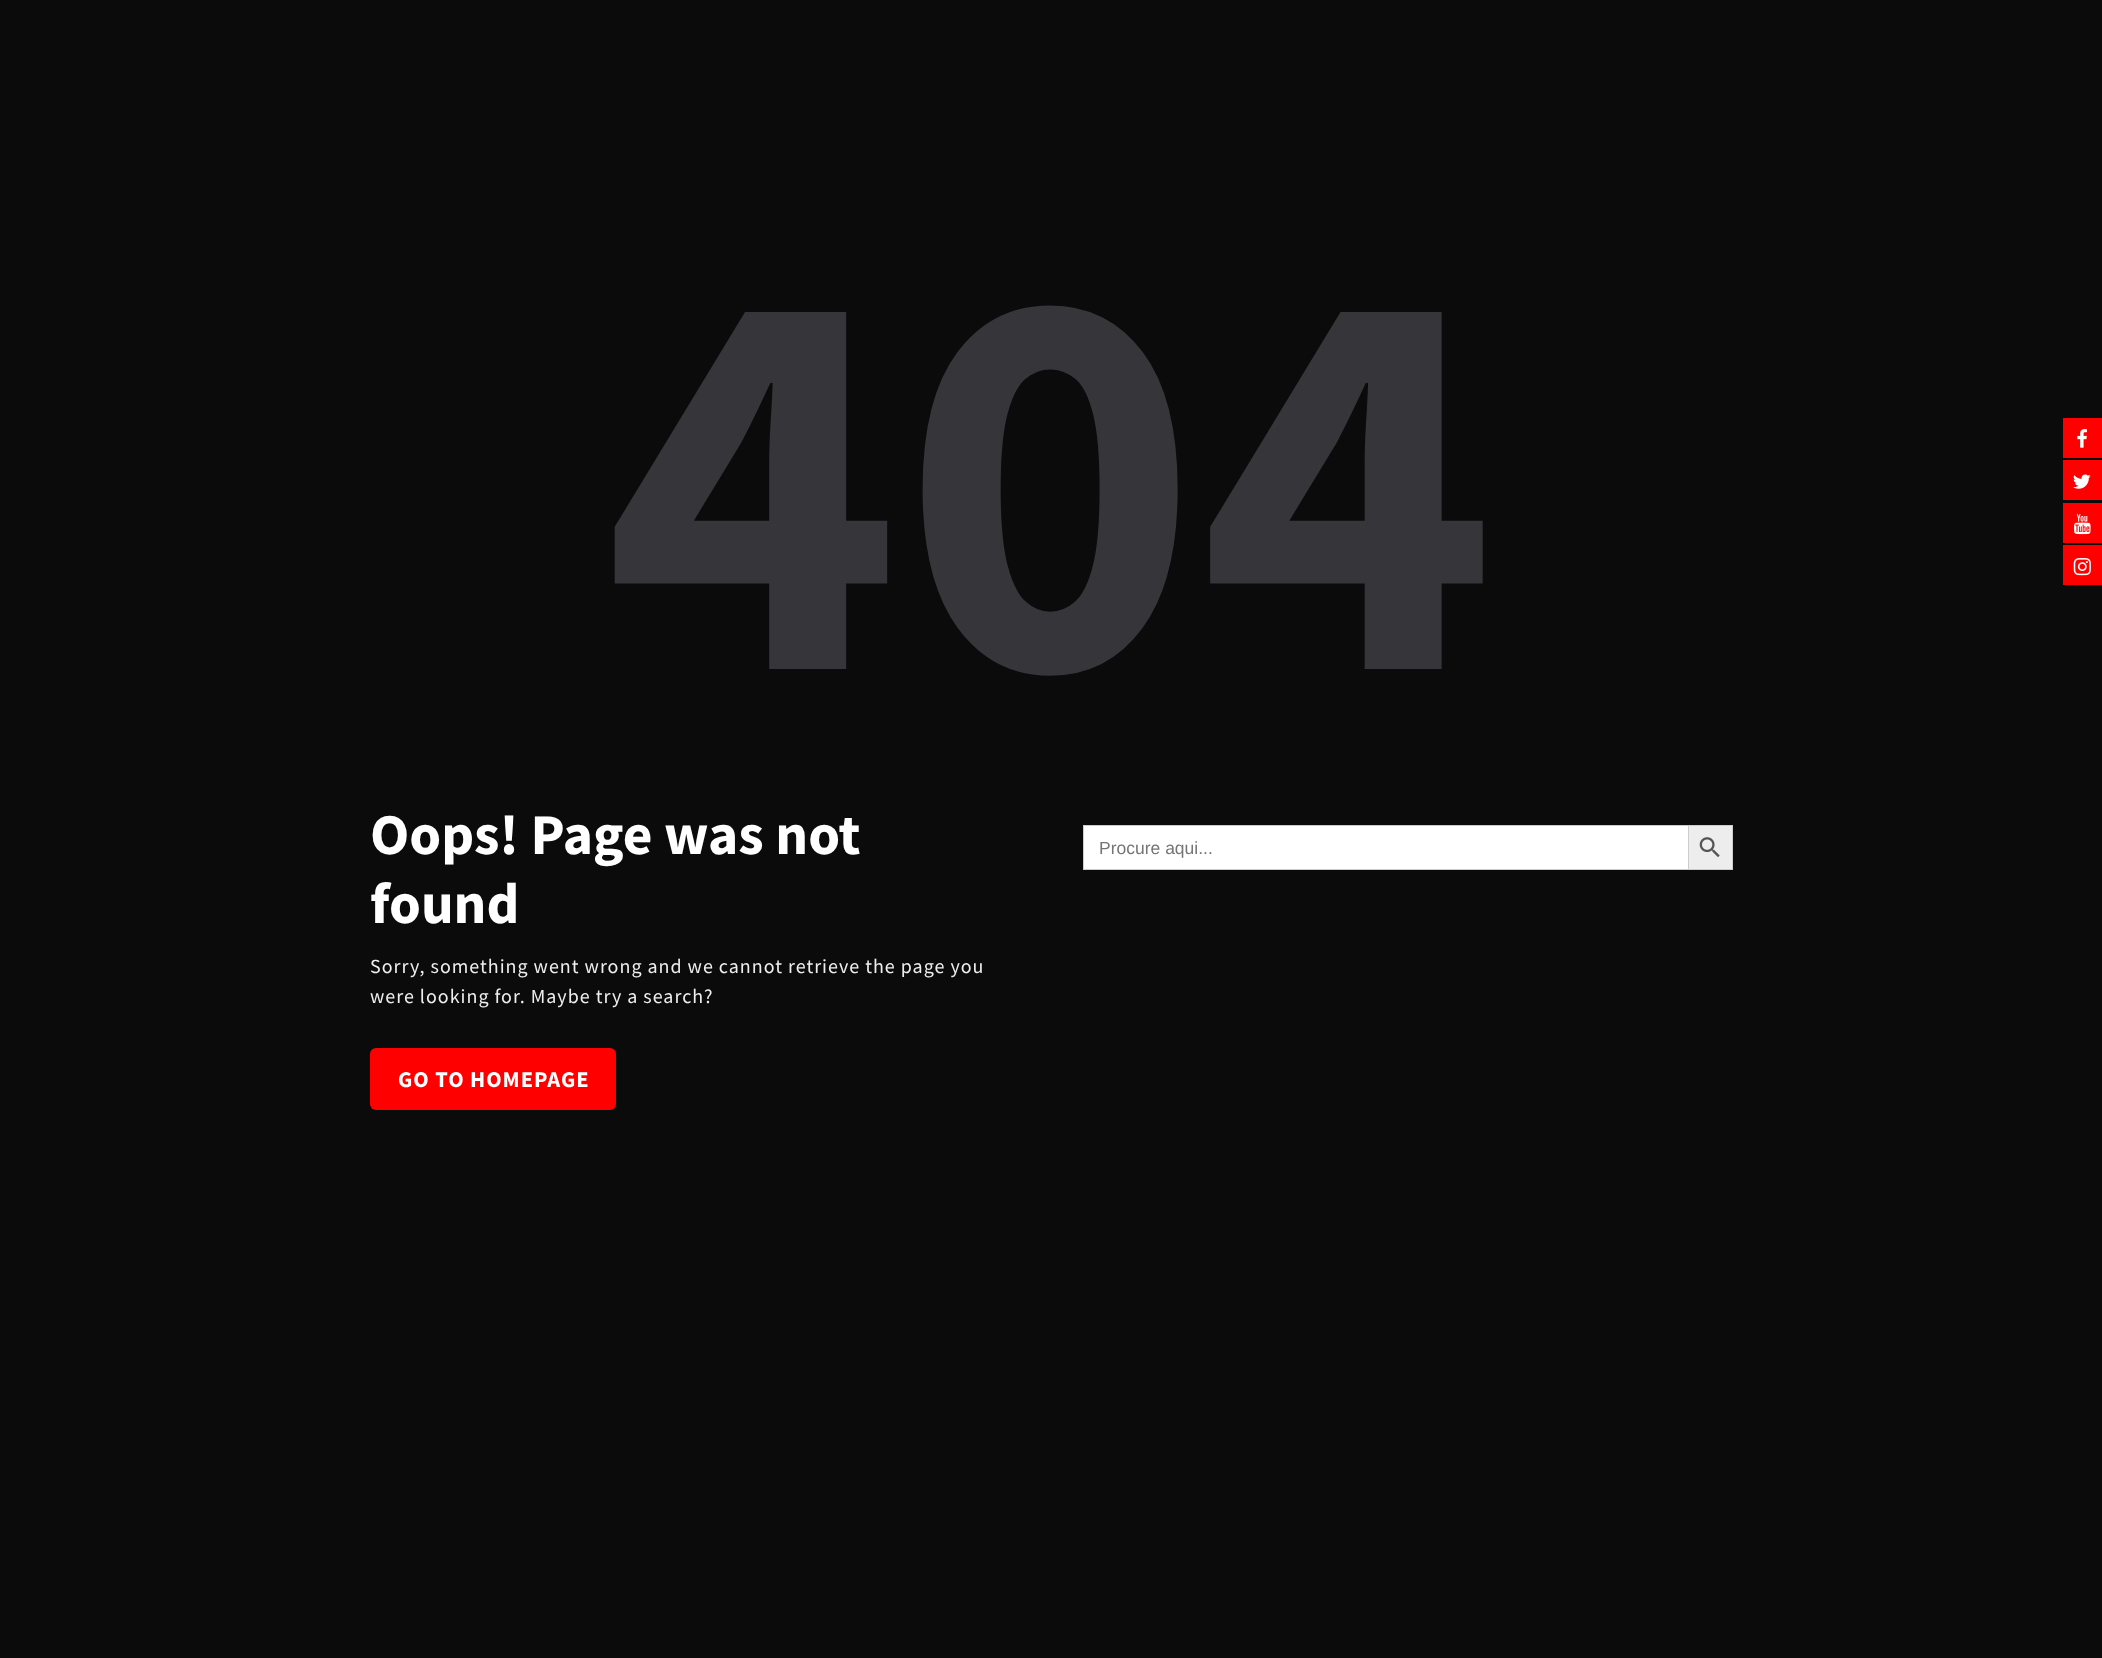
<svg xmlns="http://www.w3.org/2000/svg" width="2102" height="1658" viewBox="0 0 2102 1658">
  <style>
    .t1 { font: bold 562px Source Sans Pro; letter-spacing: 1px; fill: #36363a; }
    .t2 { font: bold 57.5px Source Sans Pro; fill: #fff; }
    .t3 { font: 20px Source Sans Pro; letter-spacing: 1px; fill: #eee; }
    .t4 { font: bold 22.5px Source Sans Pro; letter-spacing: 1px; fill: #fff; }
    .t5 { font: 17.5px Liberation Sans; fill: #757575; }
  </style>
  <rect width="100%" height="100%" fill="#0b0b0c"/>
  <text x="604" y="669" class="t1">404</text>
  <text x="370" y="854" class="t2">Oops! Page was not</text>
  <text x="370" y="923" class="t2">found</text>
  <text x="370" y="973" class="t3">Sorry, something went wrong and we cannot retrieve the page you</text>
  <text x="370" y="1003" class="t3">were looking for. Maybe try a search?</text>
  <rect x="370" y="1048" width="246" height="62" rx="6" fill="#f00"/>
  <text x="398" y="1087" class="t4">GO TO HOMEPAGE</text>
  <rect x="1084" y="826" width="604" height="43" fill="#fff"/>
  <rect x="1083" y="825" width="605" height="1" fill="#ccc"/>
  <rect x="1083" y="869" width="605" height="1" fill="#ccc"/>
  <rect x="1083" y="825" width="1" height="45" fill="#ccc"/>
  <text x="1099" y="854" class="t5">Procure aqui...</text>
  <rect x="1688.5" y="825.5" width="44" height="44" fill="#ededed" stroke="#ccc"/>
  <image x="1699" y="837" width="21" height="21" href="images/1.png"/>
  <rect x="2063" y="418" width="39" height="40" fill="#f00"/>
  <image x="2077" y="429" width="10" height="19" href="images/2.png"/>
  <rect x="2063" y="460" width="39" height="40" fill="#f00"/>
  <image x="2073" y="474" width="18" height="15" href="images/3.png"/>
  <rect x="2063" y="503" width="39" height="40" fill="#f00"/>
  <image x="2074" y="514" width="17" height="21" href="images/4.png"/>
  <rect x="2063" y="545" width="39" height="40" fill="#f00"/>
  <image x="2073" y="558" width="18" height="18" href="images/5.png"/>
</svg>
